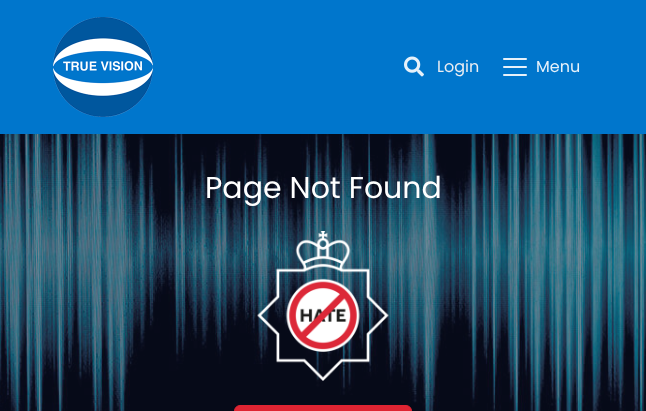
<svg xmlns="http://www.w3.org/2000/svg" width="646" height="411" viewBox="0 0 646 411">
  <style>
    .t1 { font: 16px Poppins; fill: #eaedf2; }
    .t2 { font: 16px Poppins; fill: #e6f1fa; }
    .t3 { font: 30px Poppins; fill: #fff; }
  </style>
  <rect width="100%" height="100%" fill="#fff"/>
  <rect x="0" y="0" width="646" height="134" fill="#0076cc"/>
  <image x="53" y="17" width="100" height="100" href="images/1.png"/>
  <image x="404" y="56" width="20" height="21" href="images/2.png"/>
  <text x="437" y="72" class="t1">Login</text>
  <image x="503" y="58" width="24" height="18" href="images/3.png"/>
  <text x="536" y="72" class="t2">Menu</text>
  <image x="0" y="134" width="646" height="277" href="images/4.png"/>
  <text x="205" y="198" class="t3">Page Not Found</text>
  <image x="257" y="231" width="132" height="150" href="images/5.png"/>
  <rect x="234.5" y="405.5" width="177" height="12" rx="5.5" fill="#de2432" stroke="#de2432"/>
</svg>
